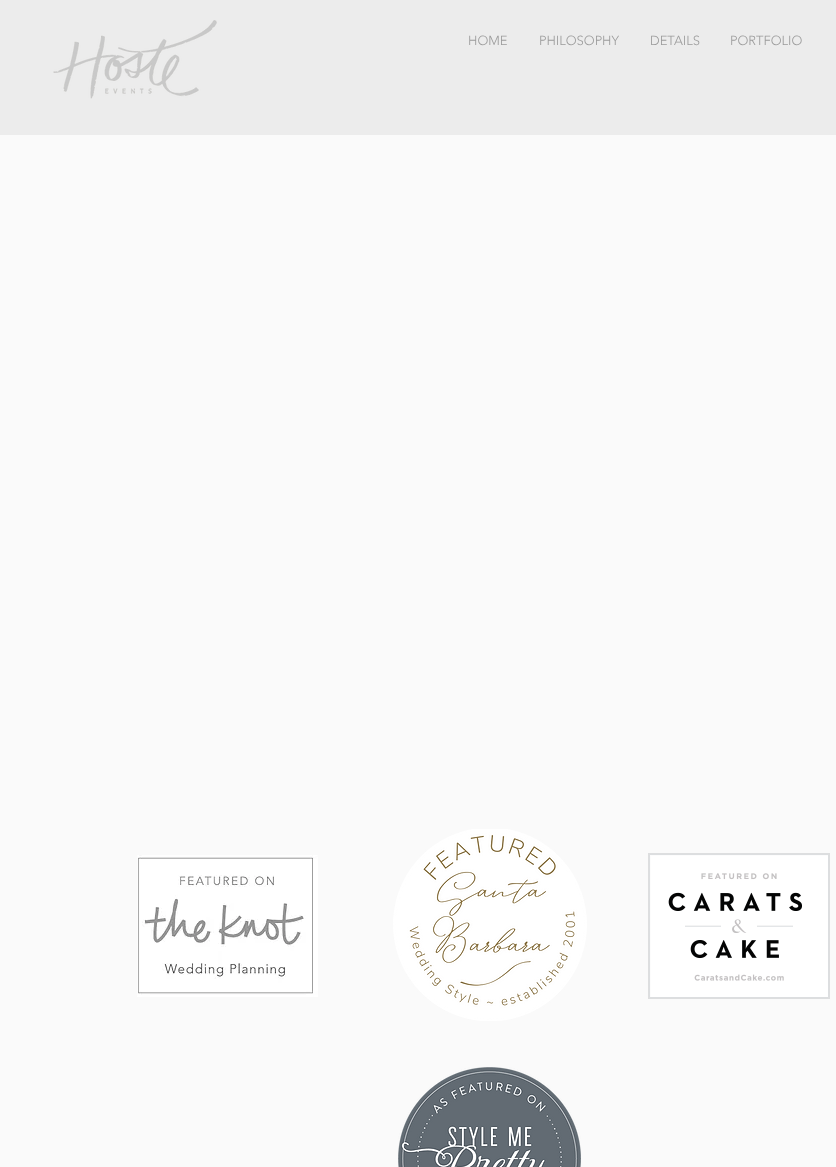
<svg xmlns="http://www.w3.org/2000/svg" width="836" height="1167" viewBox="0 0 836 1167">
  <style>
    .t1 { font: 300 13px 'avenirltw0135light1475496'; fill: #9b9b9b; }
  </style>
  <rect width="100%" height="100%" fill="#fafafa"/>
  <rect x="0" y="0" width="836" height="135" fill="#ececec"/>
  <image x="53" y="20" width="164" height="79" href="images/1.png"/>
  <text x="468" y="45" class="t1">HOME</text>
  <text x="539" y="45" class="t1">PHILOSOPHY</text>
  <text x="650" y="45" class="t1">DETAILS</text>
  <text x="730" y="45" class="t1">PORTFOLIO</text>
  <image x="137" y="855" width="181" height="142" href="images/2.png"/>
  <image x="393" y="829" width="194" height="192" href="images/3.png"/>
  <image x="648" y="853" width="182" height="146" href="images/4.png"/>
  <image x="398" y="1067" width="183" height="100" href="images/5.png"/>
</svg>
